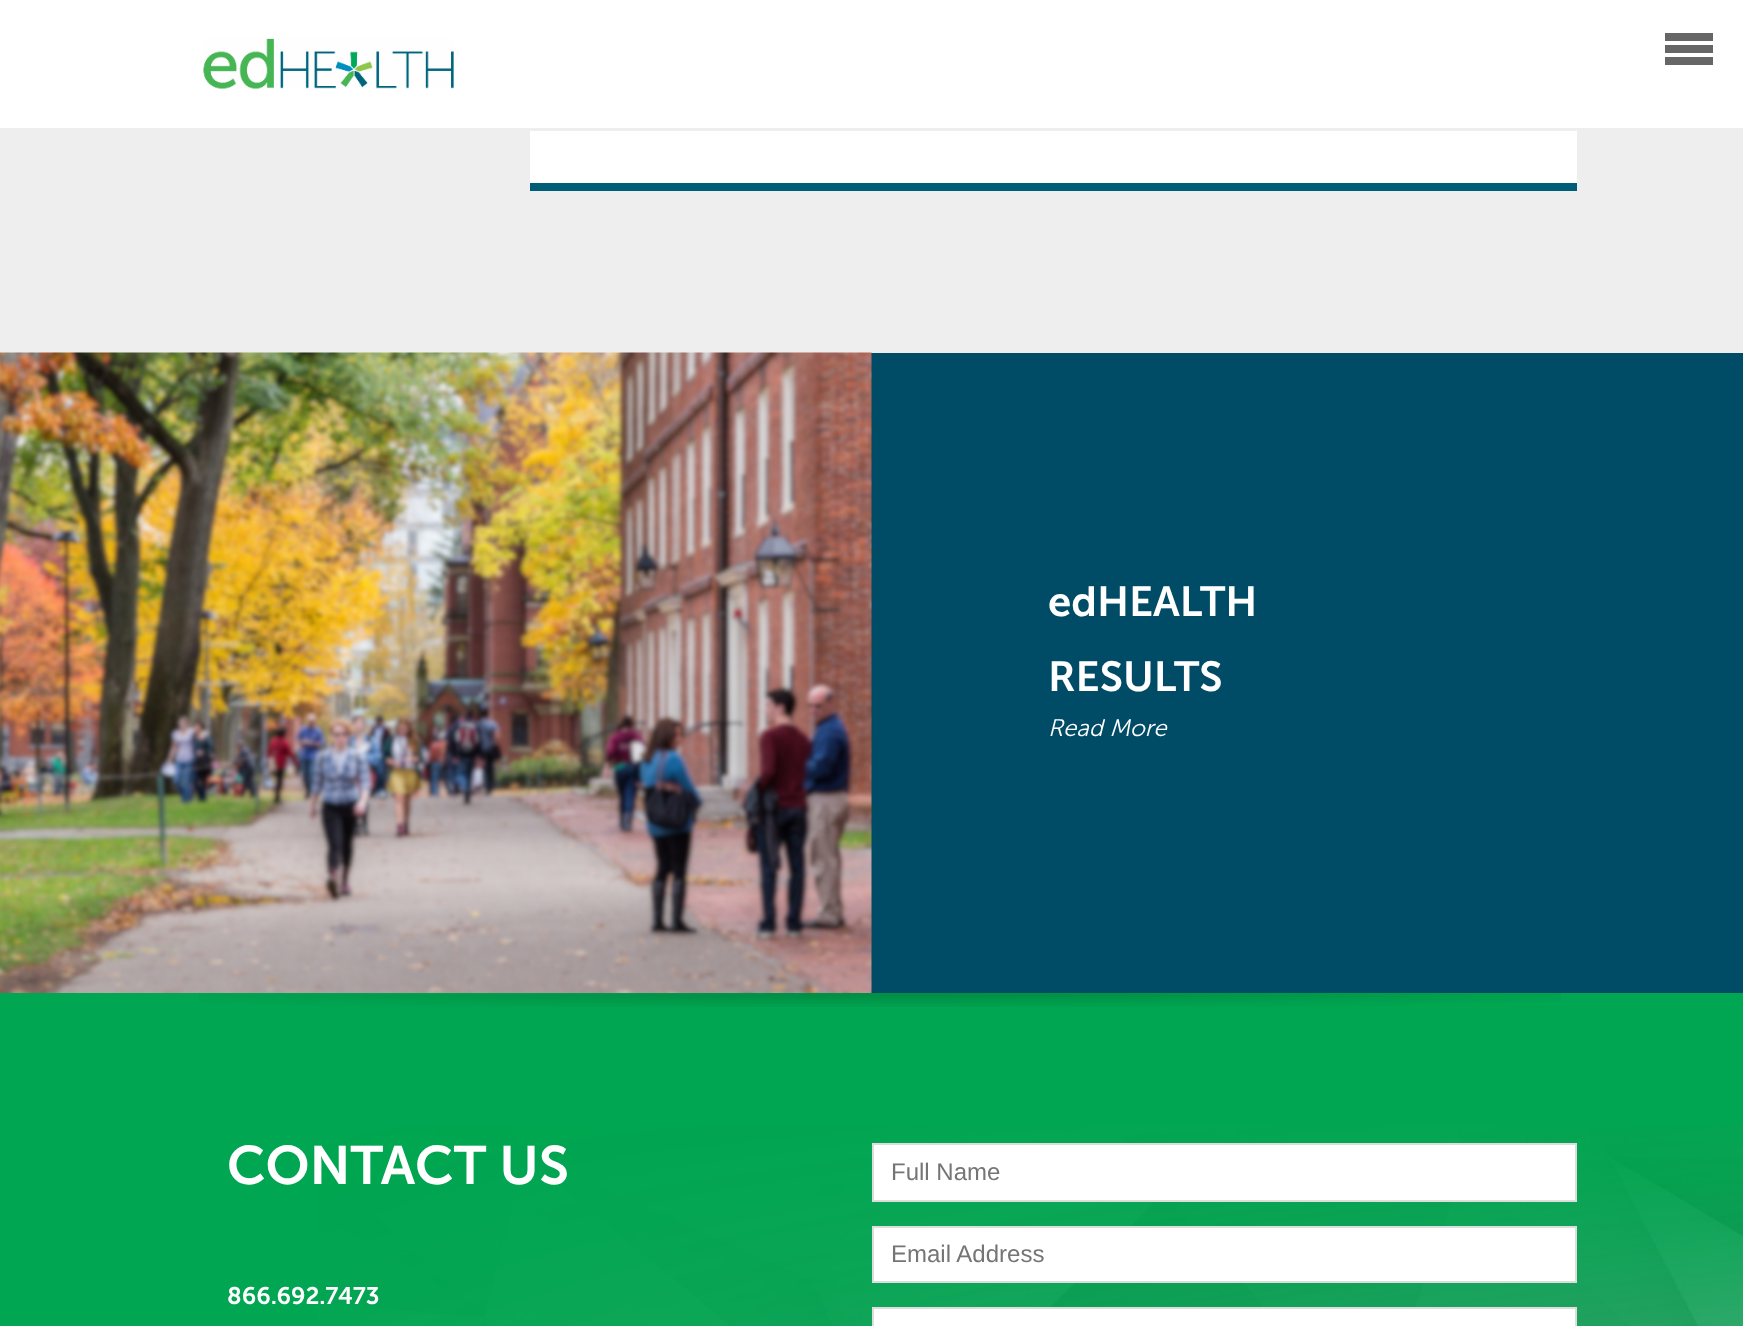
<svg xmlns="http://www.w3.org/2000/svg" width="1743" height="1326" viewBox="0 0 1743 1326">
  <style>
    .t1 { font: 600 42px Museo Sans; fill: #fff; }
    .t2 { font: italic 300 24px Museo Sans; fill: #fff; }
    .t3 { font: 600 54px Museo Sans; fill: #fff; }
    .t4 { font: 600 24px Museo Sans; fill: #fff; }
    .t5 { font: 24px Liberation Sans; fill: #757575; }
  </style>
  <rect width="100%" height="100%" fill="#eee"/>
  <rect x="0" y="0" width="1743" height="128" fill="#fff"/>
  <image x="203" y="38" width="251" height="51" href="images/1.png"/>
  <rect x="1665" y="57" width="48" height="8" fill="#666"/>
  <rect x="1665" y="45" width="48" height="8" fill="#666"/>
  <rect x="1665" y="33" width="48" height="8" fill="#666"/>
  <rect x="530" y="131" width="1047" height="52" fill="#fff"/>
  <rect x="530" y="183" width="1047" height="8" fill="#005d77"/>
  <rect x="871" y="353" width="872" height="640" fill="#004c66"/>
  <image x="0" y="352" width="872" height="641" href="images/2.png"/>
  <text x="1048" y="616" class="t1">edHEALTH</text>
  <text x="1048" y="691" class="t1">RESULTS</text>
  <text x="1048" y="736" class="t2">Read More</text>
  <rect x="0" y="993" width="1743" height="333" fill="#00a651"/>
  <image x="318" y="1125" width="1425" height="201" href="images/3.png"/>
  <image x="199" y="993" width="1362" height="14" href="images/4.png"/>
  <text x="227" y="1184" class="t3">CONTACT US</text>
  <text x="227" y="1304" class="t4">866.692.7473</text>
  <rect x="873" y="1144" width="703" height="57" fill="#fff" stroke="#ddd" stroke-width="2"/>
  <text x="891" y="1180" class="t5">Full Name</text>
  <rect x="873" y="1227" width="703" height="55" fill="#fff" stroke="#ddd" stroke-width="2"/>
  <text x="891" y="1262" class="t5">Email Address</text>
  <rect x="873" y="1308" width="703" height="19" fill="#fff" stroke="#ddd" stroke-width="2"/>
</svg>
